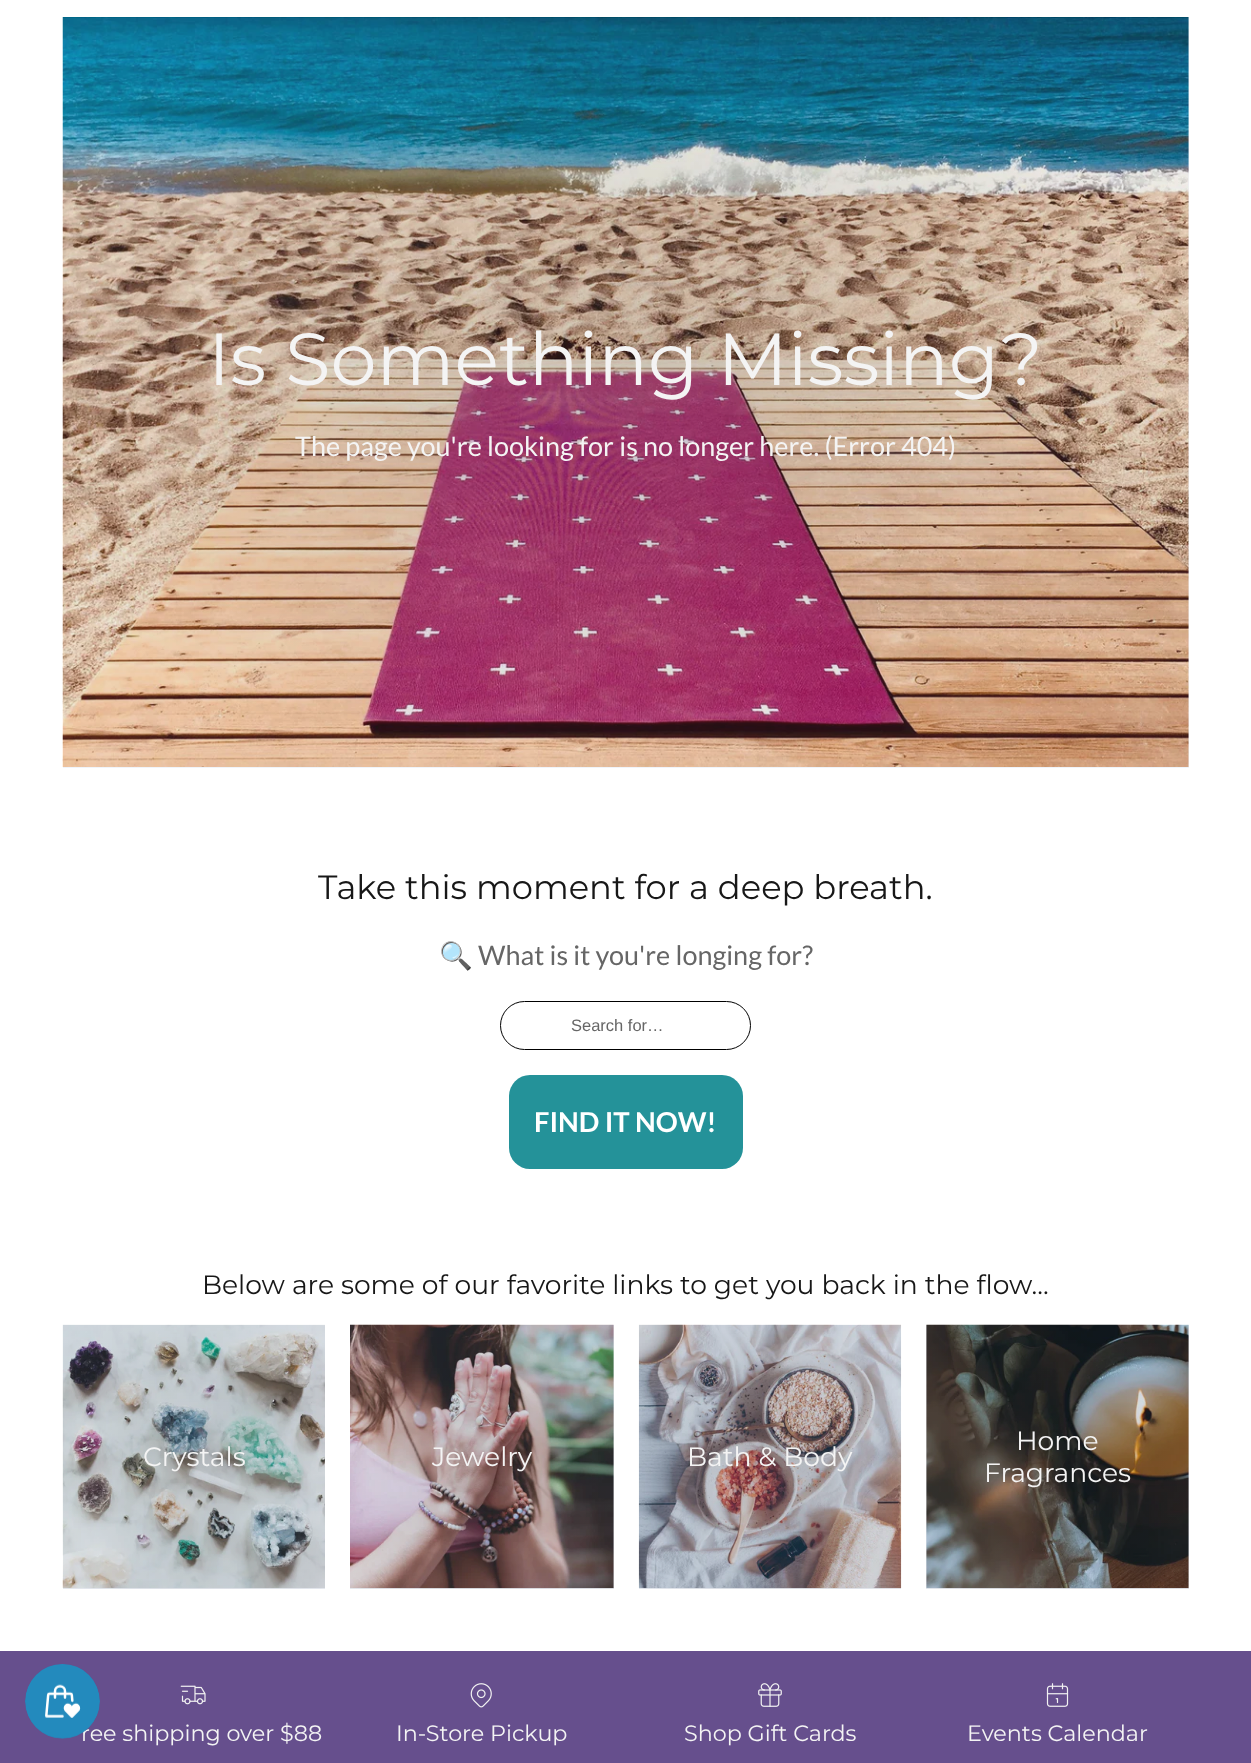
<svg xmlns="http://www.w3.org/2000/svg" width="1251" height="1763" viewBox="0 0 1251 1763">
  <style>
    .t1 { font: 73.5px Montserrat; fill: #f4f4f4; }
    .t2 { font: 27px Lato; fill: #f4f4f4; }
    .t3 { font: 33.75px Montserrat; fill: #171717; }
    .t4 { font: 27px Noto Color Emoji; fill: #666; }
    .t5 { font: 27px Lato; fill: #666; }
    .t6 { font: 16.5px Liberation Sans; fill: #666; }
    .t7 { font: bold 27.5px Lato; fill: #fff; }
    .t8 { font: 26.6px Montserrat; fill: #171717; }
    .t9 { font: 26.6px Montserrat; fill: #f4f4f4; }
    .t10 { font: 22.25px Montserrat; fill: #f4f4f4; }
  </style>
  <defs>
    <radialGradient id="g1" gradientUnits="userSpaceOnUse" cx="0" cy="0" r="1" gradientTransform="matrix(973 0 0 547 626 393)"><stop offset="0" stop-color="#000" stop-opacity="0.15"/><stop offset="0.7" stop-color="#000" stop-opacity="0"/></radialGradient>
    <radialGradient id="g2" gradientUnits="userSpaceOnUse" cx="0" cy="0" r="1" gradientTransform="matrix(362 0 0 411 194 1457)"><stop offset="0" stop-color="#000" stop-opacity="0.15"/><stop offset="0.7" stop-color="#000" stop-opacity="0"/></radialGradient>
    <radialGradient id="g3" gradientUnits="userSpaceOnUse" cx="0" cy="0" r="1" gradientTransform="matrix(363 0 0 411 482 1457)"><stop offset="0" stop-color="#000" stop-opacity="0.15"/><stop offset="0.7" stop-color="#000" stop-opacity="0"/></radialGradient>
    <radialGradient id="g4" gradientUnits="userSpaceOnUse" cx="0" cy="0" r="1" gradientTransform="matrix(362 0 0 411 770 1457)"><stop offset="0" stop-color="#000" stop-opacity="0.15"/><stop offset="0.7" stop-color="#000" stop-opacity="0"/></radialGradient>
    <radialGradient id="g5" gradientUnits="userSpaceOnUse" cx="0" cy="0" r="1" gradientTransform="matrix(362 0 0 434 1058 1457)"><stop offset="0" stop-color="#000" stop-opacity="0.15"/><stop offset="0.7" stop-color="#000" stop-opacity="0"/></radialGradient>
  </defs>
  <rect width="100%" height="100%" fill="#fff"/>
  <rect x="63" y="18" width="1126" height="750" fill="#f0f4fa"/>
  <rect x="926" y="1325" width="263" height="264" fill="#f0f4fa"/>
  <rect x="639" y="1588" width="262" height="1" fill="#f0f4fa"/>
  <rect x="350" y="1325" width="264" height="264" fill="#f0f4fa"/>
  <rect x="63" y="1588" width="262" height="1" fill="#f0f4fa"/>
  <image x="62" y="17" width="1127" height="750" href="images/1.png"/>
  <rect x="63" y="66" width="1126" height="654" fill="url(#g1)"/>
  <text x="208" y="385" class="t1">Is Something Missing?</text>
  <text x="295" y="456" class="t2">The page you're looking for is no longer here. (Error 404)</text>
  <text x="318" y="899" class="t3">Take this moment for a deep breath.</text>
  <text x="439" y="965" class="t4">🔍</text>
  <text x="478" y="965" class="t5">What is it you're longing for?</text>
  <rect x="500.5" y="1001.5" width="250" height="48" rx="24" fill="none" stroke="#000"/>
  <text x="571" y="1031" class="t6">Search for…</text>
  <rect x="509" y="1075" width="234" height="94" rx="21" fill="#249299"/>
  <text x="534" y="1132" class="t7">FIND IT NOW!</text>
  <text x="202" y="1294" class="t8">Below are some of our favorite links to get you back in the flow…</text>
  <image x="62" y="1324" width="263" height="265" href="images/2.png"/>
  <rect x="63" y="1325" width="262" height="264" fill="url(#g2)"/>
  <text x="143" y="1466" class="t9">Crystals</text>
  <image x="350" y="1324" width="264" height="265" href="images/3.png"/>
  <rect x="350" y="1325" width="264" height="264" fill="url(#g3)"/>
  <text x="432" y="1466" class="t9">Jewelry</text>
  <image x="638" y="1324" width="264" height="265" href="images/4.png"/>
  <rect x="639" y="1325" width="262" height="264" fill="url(#g4)"/>
  <text x="687" y="1466" class="t9">Bath &amp; Body</text>
  <image x="926" y="1324" width="263" height="265" href="images/5.png"/>
  <rect x="926" y="1325" width="263" height="264" fill="url(#g5)"/>
  <text x="1016" y="1450" class="t9">Home</text>
  <text x="984" y="1482" class="t9">Fragrances</text>
  <rect x="0" y="1651" width="1251" height="112" fill="#664f8d"/>
  <text x="81" y="1741" class="t10">ree shipping over $88</text>
  <image x="25" y="1664" width="75" height="75" href="images/6.png"/>
  <image x="180" y="1685" width="26" height="20" href="images/7.png"/>
  <image x="470" y="1683" width="22" height="25" href="images/8.png"/>
  <text x="396" y="1741" class="t10">In-Store Pickup</text>
  <image x="758" y="1683" width="24" height="24" href="images/9.png"/>
  <text x="684" y="1741" class="t10">Shop Gift Cards</text>
  <image x="1046" y="1683" width="23" height="24" href="images/10.png"/>
  <text x="967" y="1741" class="t10">Events Calendar</text>
</svg>
